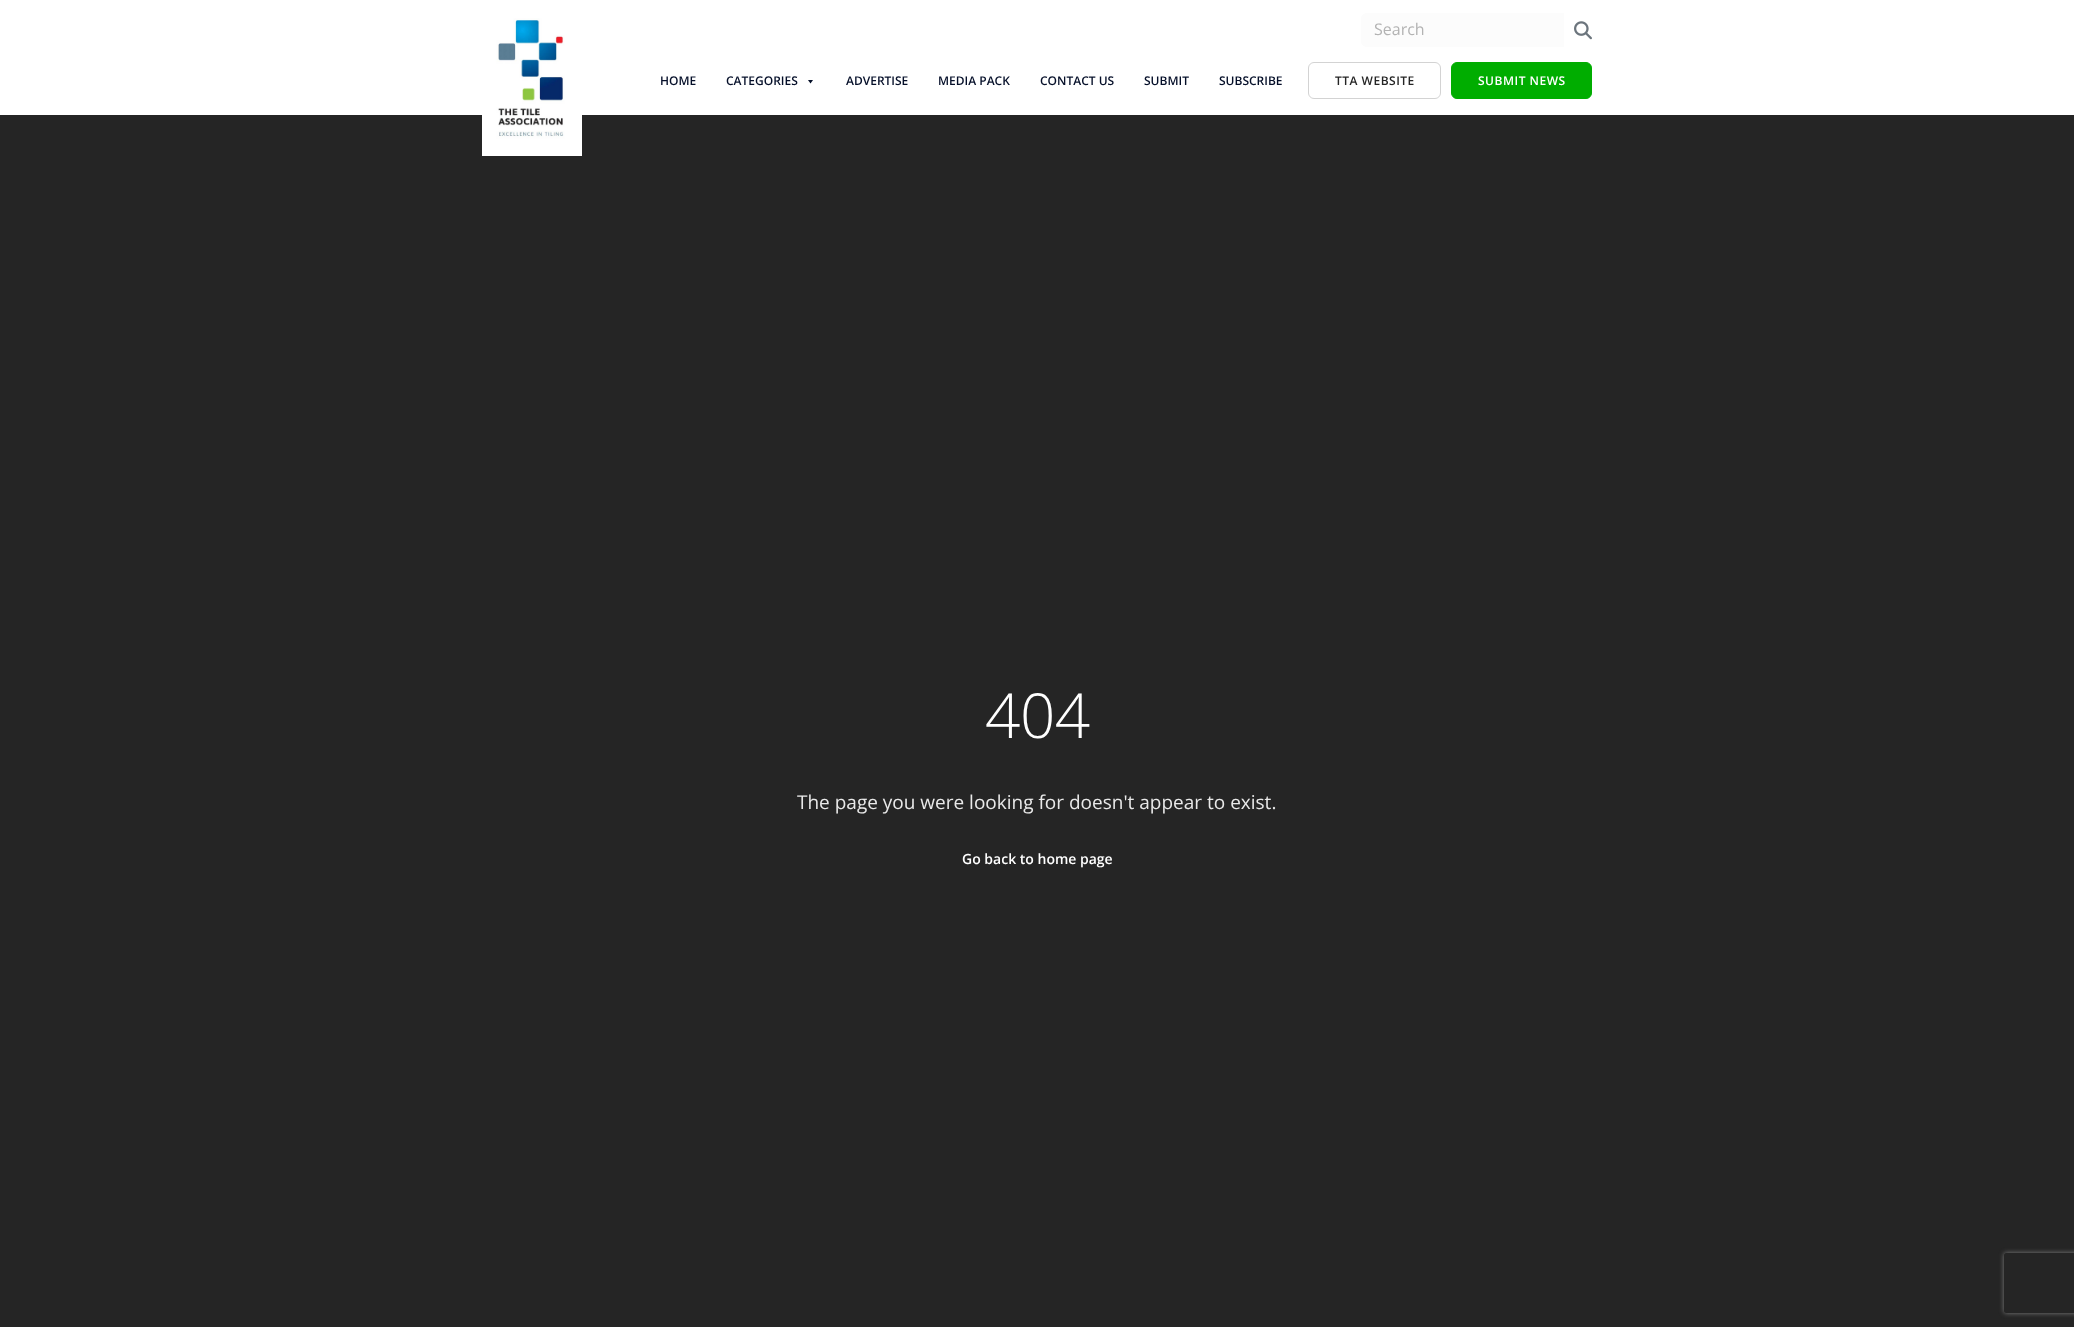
<svg xmlns="http://www.w3.org/2000/svg" width="2074" height="1327" viewBox="0 0 2074 1327">
  <style>
    .t1 { font: 16px Open Sans; fill: #b3b3b3; }
    .t2 { font: 600 12px Open Sans; fill: #050f29; }
    .t3 { font: 600 12px Open Sans; letter-spacing: 0.5px; fill: #252525; }
    .t4 { font: 600 12px Open Sans; letter-spacing: 0.5px; fill: #fff; }
    .t5 { font: 300 62px Open Sans; letter-spacing: -0.5px; fill: #fff; }
    .t6 { font: 19px Open Sans; fill: #e9e9e9; }
    .t7 { font: 600 14px Open Sans; fill: #fff; }
  </style>
  <defs>
    <clipPath id="clip1"><path d="M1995 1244H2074V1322H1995ZM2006 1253H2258C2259 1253 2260 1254 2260 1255V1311C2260 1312 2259 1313 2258 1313H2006C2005 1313 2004 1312 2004 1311V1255C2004 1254 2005 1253 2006 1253Z" clip-rule="evenodd"/></clipPath>
  </defs>
  <rect width="100%" height="100%" fill="#fff"/>
  <rect x="0" y="115" width="2074" height="1212" fill="#252525"/>
  <image x="482" y="18" width="100" height="138" href="images/1.png"/>
  <path d="M1367 13H1564V47H1367C1363.5 47 1361 44.5 1361 41V19C1361 15.5 1363.5 13 1367 13Z" fill="#fcfcfc"/>
  <text x="1374" y="35" class="t1">Search</text>
  <image x="1574" y="21" width="18" height="19" href="images/2.png"/>
  <text x="660" y="85" class="t2">HOME</text>
  <text x="726" y="85" class="t2">CATEGORIES</text>
  <path d="M813 80L810.5 83.5L808 80Z" fill="#050f29"/>
  <text x="846" y="85" class="t2">ADVERTISE</text>
  <text x="938" y="85" class="t2">MEDIA PACK</text>
  <text x="1040" y="85" class="t2">CONTACT US</text>
  <text x="1144" y="85" class="t2">SUBMIT</text>
  <text x="1219" y="85" class="t2">SUBSCRIBE</text>
  <rect x="1308.5" y="62.5" width="132" height="36" rx="5.5" fill="none" stroke="#d3d3d3"/>
  <text x="1335" y="85" class="t3">TTA WEBSITE</text>
  <rect x="1451.5" y="62.5" width="140" height="36" rx="5.5" fill="#00ad00" stroke="#00ad00"/>
  <text x="1478" y="85" class="t4">SUBMIT NEWS</text>
  <text x="985" y="738" class="t5">404</text>
  <text x="797" y="809" class="t6">The page you were looking for doesn't appear to exist.</text>
  <text x="962" y="864" class="t7">Go back to home page</text>
  <g clip-path="url(#clip1)">
    <rect x="2004" y="1253" width="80" height="60" rx="2" fill="#808080" filter="blur(2.5px)"/>
  </g>
</svg>
